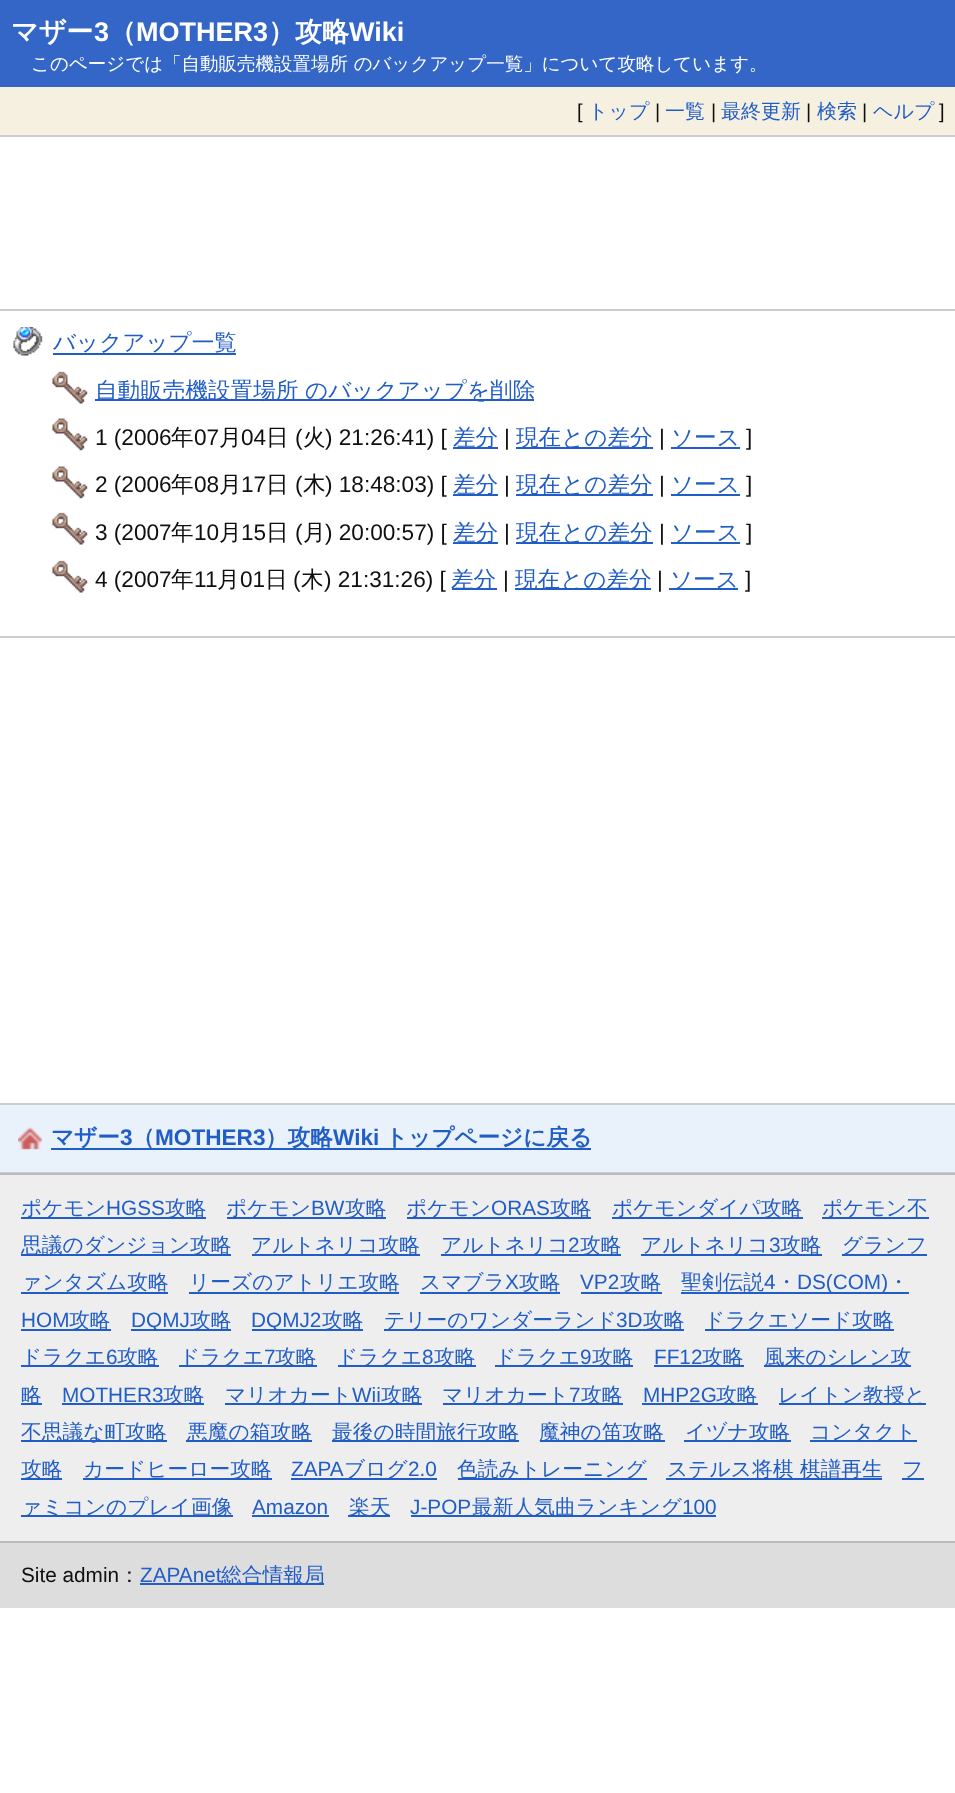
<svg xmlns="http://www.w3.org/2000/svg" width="955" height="1793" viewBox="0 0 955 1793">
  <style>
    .t1 { font: bold 27px WenQuanYi Zen Hei; fill: #fff; }
    .t2 { font: bold 27px Liberation Sans; fill: #fff; }
    .t3 { font: 500 18.5px WenQuanYi Zen Hei; fill: #fff; }
    .t4 { font: 20px Liberation Sans; fill: #0f0f0f; }
    .t5 { font: 500 20px WenQuanYi Zen Hei; fill: #215dc6; }
    .t6 { font: 500 22.6px WenQuanYi Zen Hei; fill: #215dc6; }
    .t7 { font: 22.6px Liberation Sans; fill: #0f0f0f; }
    .t8 { font: 500 22.6px WenQuanYi Zen Hei; fill: #0f0f0f; }
    .t9 { font: bold 22.6px WenQuanYi Zen Hei; fill: #215dc6; }
    .t10 { font: bold 22.6px Liberation Sans; fill: #215dc6; }
    .t11 { font: 500 20.75px WenQuanYi Zen Hei; fill: #215dc6; }
    .t12 { font: 20.75px Liberation Sans; fill: #215dc6; }
    .t13 { font: 20.75px Liberation Sans; fill: #0f0f0f; }
    .t14 { font: 500 20.75px WenQuanYi Zen Hei; fill: #0f0f0f; }
  </style>
  <rect width="100%" height="100%" fill="#fff"/>
  <rect x="0" y="0" width="955" height="87" fill="#3366c6"/>
  <text x="11" y="41" class="t1">マザー</text>
  <text x="94" y="41" class="t2">3</text>
  <text x="109" y="41" class="t1">（</text>
  <text x="136" y="41" class="t2">MOTHER3</text>
  <text x="268" y="41" class="t1">）攻略</text>
  <text x="349" y="41" class="t2">Wiki</text>
  <text x="31" y="70" class="t3">このページでは「自動販売機設置場所 のバックアップ一覧」について攻略しています。</text>
  <rect x="0" y="87" width="955" height="48" fill="#f5f0e0"/>
  <rect x="0" y="135" width="955" height="2" fill="#ccc"/>
  <text x="577" y="118" class="t4">[</text>
  <text x="588" y="118" class="t5">トップ</text>
  <text x="655" y="118" class="t4">|</text>
  <text x="665" y="118" class="t5">一覧</text>
  <text x="711" y="118" class="t4">|</text>
  <text x="721" y="118" class="t5">最終更新</text>
  <text x="806" y="118" class="t4">|</text>
  <text x="817" y="118" class="t5">検索</text>
  <text x="862" y="118" class="t4">|</text>
  <text x="873" y="118" class="t5">ヘルプ</text>
  <text x="939" y="118" class="t4">]</text>
  <rect x="0" y="309" width="955" height="2" fill="#ccc"/>
  <rect x="0" y="636" width="955" height="2" fill="#ccc"/>
  <image x="13" y="327" width="30" height="29" href="images/1.png"/>
  <text x="53" y="350" class="t6">バックアップ一覧</text>
  <rect x="53" y="353" width="183" height="2" fill="#215dc6"/>
  <image x="52" y="371" width="36" height="33" href="images/2.png"/>
  <rect x="95" y="399" width="439" height="2" fill="#215dc6"/>
  <text x="95" y="398" class="t6">自動販売機設置場所 のバックアップを削除</text>
  <image x="52" y="418" width="36" height="33" href="images/3.png"/>
  <text x="95" y="445" class="t7">1 (2006</text>
  <text x="171" y="445" class="t8">年</text>
  <text x="194" y="445" class="t7">07</text>
  <text x="219" y="445" class="t8">月</text>
  <text x="241" y="445" class="t7">04</text>
  <text x="266" y="445" class="t8">日</text>
  <text x="295" y="445" class="t7">(</text>
  <text x="303" y="445" class="t8">火</text>
  <text x="325" y="445" class="t7">) 21:26:41) [</text>
  <rect x="453" y="447" width="45" height="2" fill="#215dc6"/>
  <text x="453" y="445" class="t6">差分</text>
  <text x="504" y="445" class="t7">|</text>
  <rect x="516" y="447" width="137" height="2" fill="#215dc6"/>
  <text x="516" y="445" class="t6">現在との差分</text>
  <text x="659" y="445" class="t7">|</text>
  <rect x="671" y="447" width="69" height="2" fill="#215dc6"/>
  <text x="671" y="445" class="t6">ソース</text>
  <text x="746" y="445" class="t7">]</text>
  <image x="52" y="466" width="36" height="33" href="images/3.png"/>
  <text x="95" y="492" class="t7">2 (2006</text>
  <text x="171" y="492" class="t8">年</text>
  <text x="194" y="492" class="t7">08</text>
  <text x="219" y="492" class="t8">月</text>
  <text x="241" y="492" class="t7">17</text>
  <text x="266" y="492" class="t8">日</text>
  <text x="295" y="492" class="t7">(</text>
  <text x="303" y="492" class="t8">木</text>
  <text x="325" y="492" class="t7">) 18:48:03) [</text>
  <rect x="453" y="494" width="45" height="2" fill="#215dc6"/>
  <text x="453" y="492" class="t6">差分</text>
  <text x="504" y="492" class="t7">|</text>
  <rect x="516" y="494" width="137" height="2" fill="#215dc6"/>
  <text x="516" y="492" class="t6">現在との差分</text>
  <text x="659" y="492" class="t7">|</text>
  <rect x="671" y="494" width="69" height="2" fill="#215dc6"/>
  <text x="671" y="492" class="t6">ソース</text>
  <text x="746" y="492" class="t7">]</text>
  <image x="52" y="512" width="36" height="33" href="images/2.png"/>
  <text x="95" y="540" class="t7">3 (2007</text>
  <text x="171" y="540" class="t8">年</text>
  <text x="194" y="540" class="t7">10</text>
  <text x="219" y="540" class="t8">月</text>
  <text x="241" y="540" class="t7">15</text>
  <text x="266" y="540" class="t8">日</text>
  <text x="295" y="540" class="t7">(</text>
  <text x="303" y="540" class="t8">月</text>
  <text x="325" y="540" class="t7">) 20:00:57) [</text>
  <rect x="453" y="542" width="45" height="2" fill="#215dc6"/>
  <text x="453" y="540" class="t6">差分</text>
  <text x="504" y="540" class="t7">|</text>
  <rect x="516" y="542" width="137" height="2" fill="#215dc6"/>
  <text x="516" y="540" class="t6">現在との差分</text>
  <text x="659" y="540" class="t7">|</text>
  <rect x="671" y="542" width="69" height="2" fill="#215dc6"/>
  <text x="671" y="540" class="t6">ソース</text>
  <text x="746" y="540" class="t7">]</text>
  <image x="52" y="560" width="36" height="33" href="images/2.png"/>
  <text x="95" y="587" class="t7">4 (2007</text>
  <text x="171" y="587" class="t8">年</text>
  <text x="194" y="587" class="t7">11</text>
  <text x="217" y="587" class="t8">月</text>
  <text x="240" y="587" class="t7">01</text>
  <text x="265" y="587" class="t8">日</text>
  <text x="293" y="587" class="t7">(</text>
  <text x="301" y="587" class="t8">木</text>
  <text x="324" y="587" class="t7">) 21:31:26) [</text>
  <rect x="452" y="588" width="45" height="2" fill="#215dc6"/>
  <text x="451" y="587" class="t6">差分</text>
  <text x="503" y="587" class="t7">|</text>
  <rect x="515" y="588" width="136" height="2" fill="#215dc6"/>
  <text x="515" y="587" class="t6">現在との差分</text>
  <text x="657" y="587" class="t7">|</text>
  <rect x="669" y="588" width="69" height="2" fill="#215dc6"/>
  <text x="670" y="587" class="t6">ソース</text>
  <text x="745" y="587" class="t7">]</text>
  <rect x="0" y="1105" width="955" height="67" fill="#e9f1fb"/>
  <image x="18" y="1127" width="24" height="23" href="images/4.png"/>
  <rect x="0" y="1103" width="955" height="2" fill="#ccc"/>
  <rect x="0" y="1172" width="955" height="1" fill="#ccc"/>
  <rect x="51" y="1148" width="540" height="2" fill="#215dc6"/>
  <text x="51" y="1145" class="t9">マザー</text>
  <text x="120" y="1145" class="t10">3</text>
  <text x="132" y="1145" class="t9">（</text>
  <text x="155" y="1145" class="t10">MOTHER3</text>
  <text x="265" y="1145" class="t9">）攻略</text>
  <text x="333" y="1145" class="t10">Wiki</text>
  <text x="385" y="1145" class="t9">トップページに戻る</text>
  <rect x="0" y="1175" width="955" height="366" fill="#eee"/>
  <rect x="0" y="1173" width="955" height="2" fill="#bbb"/>
  <rect x="21" y="1217" width="185" height="2" fill="#215dc6"/>
  <text x="21" y="1215" class="t11">ポケモン</text>
  <text x="106" y="1215" class="t12">HGSS</text>
  <text x="165" y="1215" class="t11">攻略</text>
  <rect x="227" y="1217" width="159" height="2" fill="#215dc6"/>
  <text x="226" y="1215" class="t11">ポケモン</text>
  <text x="311" y="1215" class="t12">BW</text>
  <text x="345" y="1215" class="t11">攻略</text>
  <rect x="407" y="1217" width="184" height="2" fill="#215dc6"/>
  <text x="406" y="1215" class="t11">ポケモン</text>
  <text x="491" y="1215" class="t12">ORAS</text>
  <text x="550" y="1215" class="t11">攻略</text>
  <rect x="612" y="1217" width="191" height="2" fill="#215dc6"/>
  <text x="612" y="1215" class="t11">ポケモンダイパ攻略</text>
  <rect x="822" y="1217" width="107" height="2" fill="#215dc6"/>
  <text x="822" y="1215" class="t11">ポケモン不</text>
  <rect x="21" y="1254" width="210" height="2" fill="#215dc6"/>
  <text x="21" y="1252" class="t11">思議のダンジョン攻略</text>
  <rect x="252" y="1254" width="168" height="2" fill="#215dc6"/>
  <text x="251" y="1252" class="t11">アルトネリコ攻略</text>
  <rect x="441" y="1254" width="180" height="2" fill="#215dc6"/>
  <text x="441" y="1252" class="t11">アルトネリコ</text>
  <text x="568" y="1252" class="t12">2</text>
  <text x="580" y="1252" class="t11">攻略</text>
  <rect x="641" y="1254" width="181" height="2" fill="#215dc6"/>
  <text x="641" y="1252" class="t11">アルトネリコ</text>
  <text x="769" y="1252" class="t12">3</text>
  <text x="780" y="1252" class="t11">攻略</text>
  <rect x="842" y="1254" width="85" height="2" fill="#215dc6"/>
  <text x="842" y="1252" class="t11">グランフ</text>
  <rect x="21" y="1292" width="147" height="2" fill="#215dc6"/>
  <text x="21" y="1289" class="t11">ァンタズム攻略</text>
  <rect x="189" y="1292" width="210" height="2" fill="#215dc6"/>
  <text x="189" y="1289" class="t11">リーズのアトリエ攻略</text>
  <text x="420" y="1289" class="t11">スマブラ</text>
  <text x="505" y="1289" class="t12">X</text>
  <rect x="420" y="1292" width="140" height="2" fill="#215dc6"/>
  <text x="519" y="1289" class="t11">攻略</text>
  <text x="580" y="1289" class="t12">VP2</text>
  <rect x="581" y="1292" width="81" height="2" fill="#215dc6"/>
  <text x="620" y="1289" class="t11">攻略</text>
  <text x="681" y="1289" class="t11">聖剣伝説</text>
  <text x="764" y="1289" class="t12">4</text>
  <text x="776" y="1289" class="t11">・</text>
  <rect x="681" y="1292" width="228" height="2" fill="#215dc6"/>
  <text x="797" y="1289" class="t12">DS(COM)</text>
  <text x="888" y="1289" class="t11">・</text>
  <text x="21" y="1327" class="t12">HOM</text>
  <rect x="21" y="1329" width="90" height="2" fill="#215dc6"/>
  <text x="69" y="1327" class="t11">攻略</text>
  <rect x="131" y="1329" width="100" height="2" fill="#215dc6"/>
  <text x="131" y="1327" class="t12">DQMJ</text>
  <text x="190" y="1327" class="t11">攻略</text>
  <rect x="252" y="1329" width="111" height="2" fill="#215dc6"/>
  <text x="251" y="1327" class="t12">DQMJ2</text>
  <text x="322" y="1327" class="t11">攻略</text>
  <rect x="384" y="1329" width="300" height="2" fill="#215dc6"/>
  <text x="384" y="1327" class="t11">テリーのワンダーランド</text>
  <text x="616" y="1327" class="t12">3D</text>
  <text x="643" y="1327" class="t11">攻略</text>
  <rect x="705" y="1329" width="189" height="2" fill="#215dc6"/>
  <text x="704" y="1327" class="t11">ドラクエソード攻略</text>
  <rect x="21" y="1365" width="138" height="2" fill="#215dc6"/>
  <text x="21" y="1364" class="t11">ドラクエ</text>
  <text x="106" y="1364" class="t12">6</text>
  <text x="117" y="1364" class="t11">攻略</text>
  <rect x="179" y="1365" width="138" height="2" fill="#215dc6"/>
  <text x="179" y="1364" class="t11">ドラクエ</text>
  <text x="264" y="1364" class="t12">7</text>
  <text x="275" y="1364" class="t11">攻略</text>
  <rect x="338" y="1365" width="138" height="2" fill="#215dc6"/>
  <text x="337" y="1364" class="t11">ドラクエ</text>
  <text x="422" y="1364" class="t12">8</text>
  <text x="434" y="1364" class="t11">攻略</text>
  <rect x="495" y="1365" width="138" height="2" fill="#215dc6"/>
  <text x="495" y="1364" class="t11">ドラクエ</text>
  <text x="580" y="1364" class="t12">9</text>
  <text x="592" y="1364" class="t11">攻略</text>
  <text x="654" y="1364" class="t12">FF12</text>
  <rect x="654" y="1365" width="90" height="2" fill="#215dc6"/>
  <text x="702" y="1364" class="t11">攻略</text>
  <rect x="764" y="1365" width="147" height="2" fill="#215dc6"/>
  <text x="764" y="1364" class="t11">風来のシレン攻</text>
  <rect x="21" y="1403" width="21" height="2" fill="#215dc6"/>
  <text x="21" y="1402" class="t11">略</text>
  <text x="62" y="1402" class="t12">MOTHER3</text>
  <rect x="62" y="1403" width="142" height="2" fill="#215dc6"/>
  <text x="163" y="1402" class="t11">攻略</text>
  <rect x="225" y="1403" width="197" height="2" fill="#215dc6"/>
  <text x="225" y="1402" class="t11">マリオカート</text>
  <text x="352" y="1402" class="t12">Wii</text>
  <text x="381" y="1402" class="t11">攻略</text>
  <rect x="443" y="1403" width="180" height="2" fill="#215dc6"/>
  <text x="442" y="1402" class="t11">マリオカート</text>
  <text x="569" y="1402" class="t12">7</text>
  <text x="581" y="1402" class="t11">攻略</text>
  <text x="643" y="1402" class="t12">MHP2G</text>
  <rect x="642" y="1403" width="116" height="2" fill="#215dc6"/>
  <text x="716" y="1402" class="t11">攻略</text>
  <rect x="779" y="1403" width="147" height="2" fill="#215dc6"/>
  <text x="778" y="1402" class="t11">レイトン教授と</text>
  <rect x="21" y="1440" width="146" height="2" fill="#215dc6"/>
  <text x="21" y="1439" class="t11">不思議な町攻略</text>
  <rect x="186" y="1440" width="126" height="2" fill="#215dc6"/>
  <text x="187" y="1439" class="t11">悪魔の箱攻略</text>
  <rect x="332" y="1440" width="187" height="2" fill="#215dc6"/>
  <text x="332" y="1439" class="t11">最後の時間旅行攻略</text>
  <rect x="540" y="1440" width="125" height="2" fill="#215dc6"/>
  <text x="539" y="1439" class="t11">魔神の笛攻略</text>
  <rect x="684" y="1440" width="107" height="2" fill="#215dc6"/>
  <text x="685" y="1439" class="t11">イヅナ攻略</text>
  <rect x="810" y="1440" width="107" height="2" fill="#215dc6"/>
  <text x="810" y="1439" class="t11">コンタクト</text>
  <rect x="21" y="1478" width="41" height="2" fill="#215dc6"/>
  <text x="21" y="1476" class="t11">攻略</text>
  <rect x="83" y="1478" width="189" height="2" fill="#215dc6"/>
  <text x="83" y="1476" class="t11">カードヒーロー攻略</text>
  <text x="291" y="1476" class="t12">ZAPA</text>
  <rect x="291" y="1478" width="146" height="2" fill="#215dc6"/>
  <text x="344" y="1476" class="t11">ブログ</text>
  <text x="408" y="1476" class="t12">2.0</text>
  <rect x="458" y="1478" width="189" height="2" fill="#215dc6"/>
  <text x="457" y="1476" class="t11">色読みトレーニング</text>
  <rect x="666" y="1478" width="216" height="2" fill="#215dc6"/>
  <text x="667" y="1476" class="t11">ステルス将棋 棋譜再生</text>
  <rect x="902" y="1478" width="22" height="2" fill="#215dc6"/>
  <text x="902" y="1476" class="t11">フ</text>
  <rect x="21" y="1515" width="212" height="2" fill="#215dc6"/>
  <text x="21" y="1514" class="t11">ァミコンのプレイ画像</text>
  <text x="252" y="1514" class="t12">Amazon</text>
  <rect x="252" y="1515" width="77" height="2" fill="#215dc6"/>
  <rect x="348" y="1515" width="42" height="2" fill="#215dc6"/>
  <text x="349" y="1514" class="t11">楽天</text>
  <text x="410" y="1514" class="t12">J-POP</text>
  <rect x="411" y="1515" width="305" height="2" fill="#215dc6"/>
  <text x="472" y="1514" class="t11">最新人気曲ランキング</text>
  <text x="682" y="1514" class="t12">100</text>
  <rect x="0" y="1543" width="955" height="65" fill="#ddd"/>
  <rect x="0" y="1541" width="955" height="2" fill="#bbb"/>
  <text x="21" y="1582" class="t13">Site admin</text>
  <text x="119" y="1582" class="t14">：</text>
  <text x="140" y="1582" class="t12">ZAPAnet</text>
  <rect x="140" y="1583" width="184" height="2" fill="#215dc6"/>
  <text x="221" y="1582" class="t11">総合情報局</text>
</svg>
